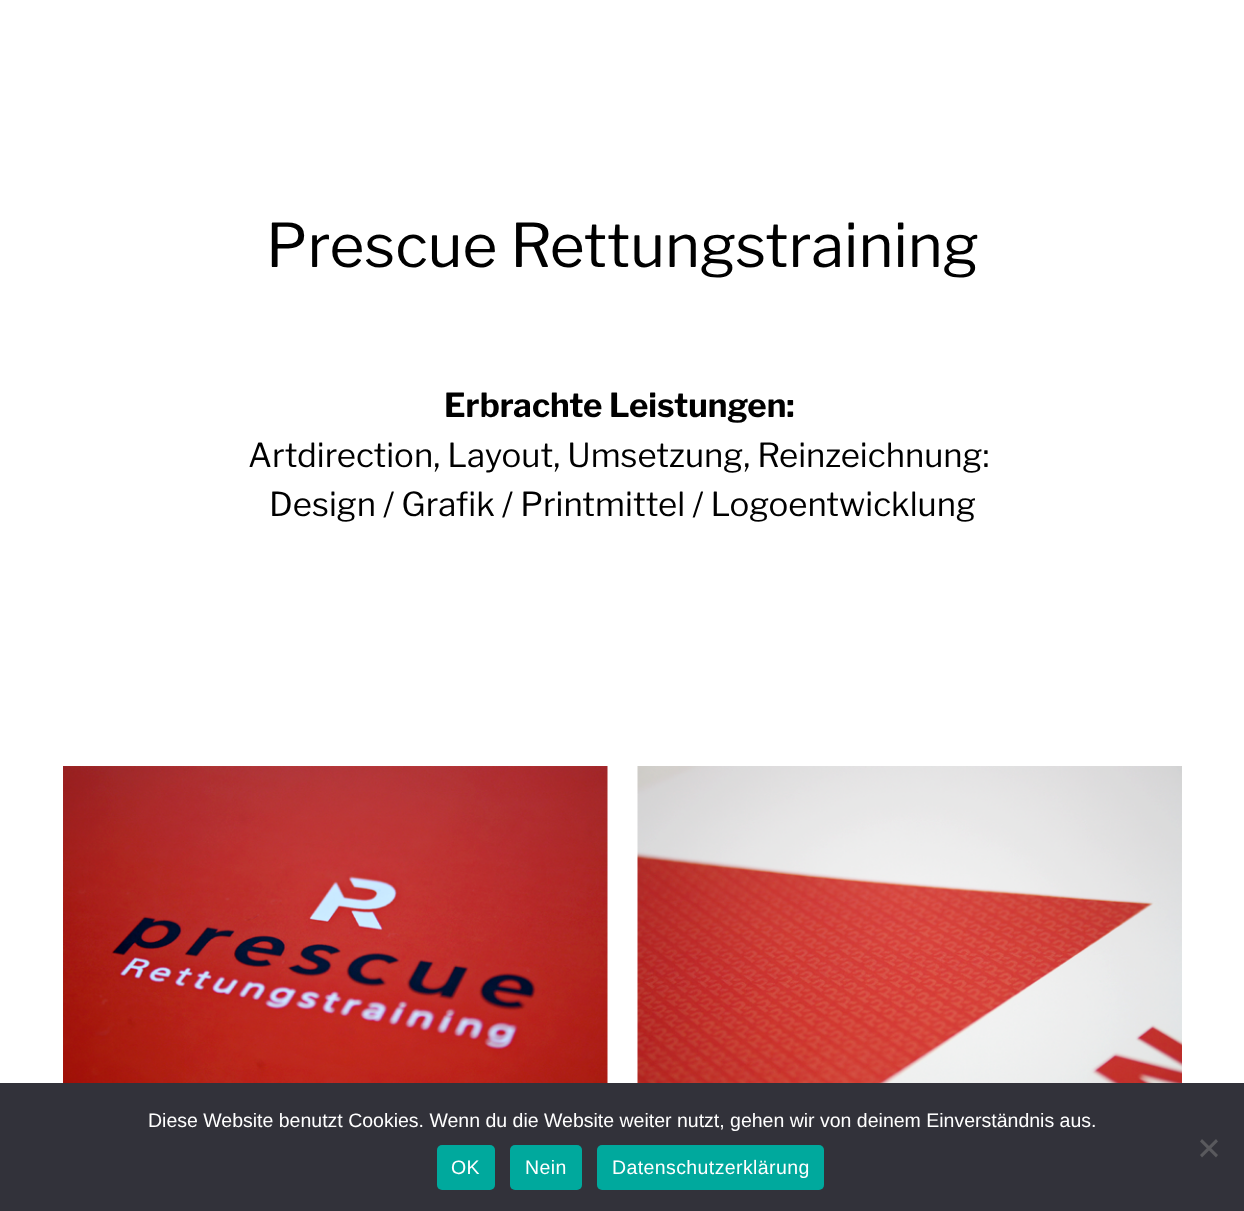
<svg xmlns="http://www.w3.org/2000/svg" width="1244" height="1211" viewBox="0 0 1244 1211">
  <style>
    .t1 { font: 100 60px Libre Franklin; fill: #000; }
    .t2 { font: 100 33px 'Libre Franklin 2'; fill: #000; }
    .t3 { font: 100 33px Libre Franklin; fill: #000; }
    .t4 { font: 19.5px Liberation Sans; fill: #fff; }
    .t5 { font: 19.5px Liberation Sans; letter-spacing: 0.4px; fill: #fff; }
  </style>
  <rect width="100%" height="100%" fill="#fff"/>
  <text x="266" y="267" class="t1">Prescue Rettungstraining</text>
  <text x="444" y="417" class="t2">Erbrachte Leistungen:</text>
  <text x="248" y="467" class="t3">Artdirection, Layout, Umsetzung, Reinzeichnung:</text>
  <text x="269" y="516" class="t3">Design / Grafik / Printmittel / Logoentwicklung</text>
  <image x="63" y="766" width="545" height="317" href="images/1.png"/>
  <image x="637" y="766" width="545" height="317" href="images/2.png"/>
  <rect x="0" y="1083" width="1244" height="128" fill="#32323a"/>
  <text x="148" y="1127" class="t4">Diese Website benutzt Cookies. Wenn du die Website weiter nutzt, gehen wir von deinem Einverständnis aus.</text>
  <path d="M1216 1139L1218 1141.5L1202 1157.5L1200 1155Z" fill="#59595d"/>
  <path d="M1200 1141.5L1202 1139L1218 1155L1216 1157.5Z" fill="#59595d"/>
  <rect x="437" y="1145" width="58" height="45" rx="5" fill="#00a99d"/>
  <text x="451" y="1174" class="t5">OK</text>
  <rect x="510" y="1145" width="72" height="45" rx="5" fill="#00a99d"/>
  <text x="525" y="1174" class="t5">Nein</text>
  <rect x="597" y="1145" width="227" height="45" rx="5" fill="#00a99d"/>
  <text x="612" y="1174" class="t5">Datenschutzerklärung</text>
</svg>
